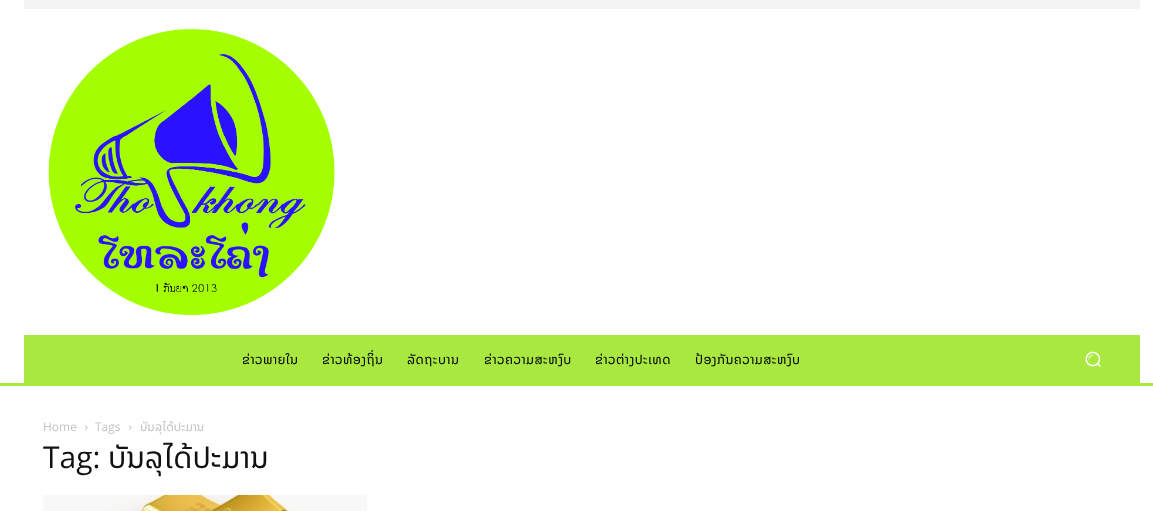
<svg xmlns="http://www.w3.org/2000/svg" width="1153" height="511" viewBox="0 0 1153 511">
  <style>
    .t1 { font: 13px Noto Sans Lao; letter-spacing: 0.4px; fill: #000; }
    .t2 { font: 12px Open Sans; fill: #c3c3c3; }
    .t3 { font: 12px Noto Sans Lao; fill: #c3c3c3; }
    .t4 { font: 30px Open Sans; fill: #111; }
    .t5 { font: 30px Noto Sans Lao; fill: #111; }
  </style>
  <rect width="100%" height="100%" fill="#fff"/>
  <rect x="24" y="0" width="1116" height="9" fill="#f4f4f4"/>
  <image x="48" y="29" width="287" height="286" href="images/1.png"/>
  <rect x="24" y="335" width="1116" height="48" fill="#a8e840"/>
  <text x="242" y="364" class="t1">ຂ່າວພາຍໃນ</text>
  <text x="322" y="364" class="t1">ຂ່າວທ້ອງຖິ່ນ</text>
  <text x="407" y="364" class="t1">ລັດຖະບານ</text>
  <text x="484" y="364" class="t1">ຂ່າວຄວາມສະຫງົບ</text>
  <text x="595" y="364" class="t1">ຂ່າວຕ່າງປະເທດ</text>
  <text x="695" y="364" class="t1">ປ້ອງກັນຄວາມສະຫງົບ</text>
  <image x="1085" y="351" width="16" height="16" href="images/2.png"/>
  <rect x="0" y="383" width="1153" height="3" fill="#a8e840"/>
  <text x="43" y="431" class="t2">Home</text>
  <image x="85" y="425" width="3" height="5" href="images/3.png"/>
  <text x="95" y="431" class="t2">Tags</text>
  <image x="129" y="425" width="3" height="5" href="images/3.png"/>
  <text x="140" y="431" class="t3">ບັນລຸໄດ້ປະມານ</text>
  <text x="43" y="468" class="t4">Tag:</text>
  <text x="108" y="468" class="t5">ບັນລຸໄດ້ປະມານ</text>
  <image x="43" y="495" width="324" height="16" href="images/4.png"/>
</svg>
